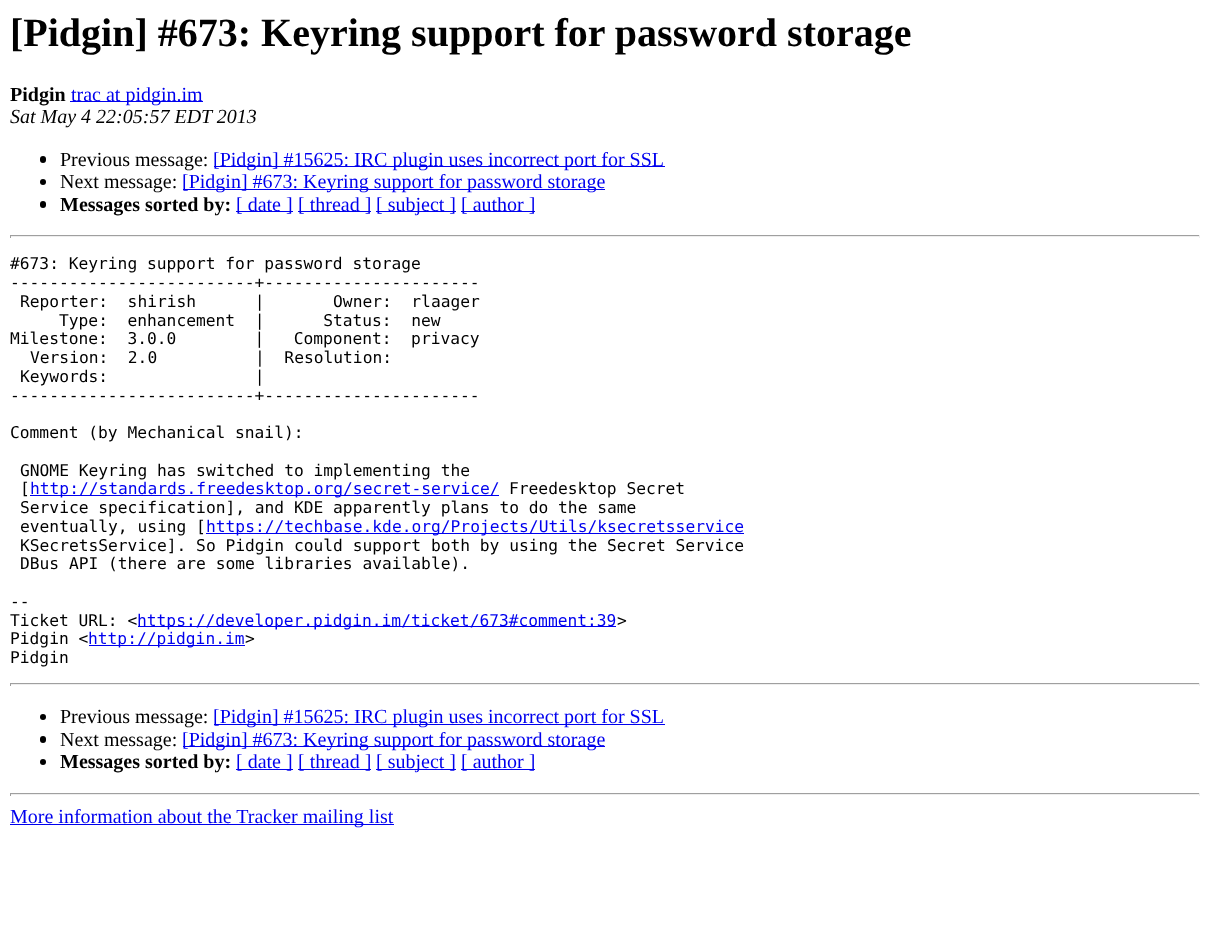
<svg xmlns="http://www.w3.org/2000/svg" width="1210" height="928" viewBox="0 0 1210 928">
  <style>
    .t1 { font: bold 40px Liberation Serif; fill: #000; }
    .t2 { font: bold 20px Liberation Serif; fill: #000; }
    .t3 { font: 20px Liberation Serif; fill: #00e; }
    .t4 { font: italic 20px Liberation Serif; fill: #000; }
    .t5 { font: 20px Liberation Serif; fill: #000; }
    .t6 { font: 16.25px DejaVu Sans Mono; fill: #000; }
    .t7 { font: 16.25px DejaVu Sans Mono; fill: #00e; }
  </style>
  <rect width="100%" height="100%" fill="#fff"/>
  <text x="10" y="46" class="t1">[Pidgin] #673: Keyring support for password storage</text>
  <text x="10" y="101" class="t2">Pidgin</text>
  <rect x="70" y="101" width="133" height="1" fill="#00e"/>
  <text x="71" y="101" class="t3">trac at pidgin.im</text>
  <text x="10" y="123" class="t4">Sat May 4 22:05:57 EDT 2013</text>
  <rect x="40" y="156" width="6" height="7" rx="3" fill="#000"/>
  <text x="60" y="166" class="t5">Previous message:</text>
  <rect x="214" y="166" width="451" height="1" fill="#00e"/>
  <text x="213" y="166" class="t3">[Pidgin] #15625: IRC plugin uses incorrect port for SSL</text>
  <circle cx="43" cy="182" r="3" fill="#000"/>
  <text x="60" y="188" class="t5">Next message:</text>
  <rect x="183" y="189" width="422" height="1" fill="#00e"/>
  <text x="182" y="188" class="t3">[Pidgin] #673: Keyring support for password storage</text>
  <rect x="40" y="201" width="6" height="7" rx="3" fill="#000"/>
  <text x="60" y="211" class="t2">Messages sorted by:</text>
  <rect x="236" y="211" width="57" height="1" fill="#00e"/>
  <text x="236" y="211" class="t3">[ date ]</text>
  <rect x="298" y="211" width="73" height="1" fill="#00e"/>
  <text x="298" y="211" class="t3">[ thread ]</text>
  <rect x="376" y="211" width="80" height="1" fill="#00e"/>
  <text x="376" y="211" class="t3">[ subject ]</text>
  <rect x="461" y="211" width="74" height="1" fill="#00e"/>
  <text x="461" y="211" class="t3">[ author ]</text>
  <rect x="10" y="235" width="1190" height="1" fill="#9f9f9f"/>
  <rect x="1199" y="235" width="1" height="3" fill="#eee"/>
  <rect x="10" y="236" width="1190" height="1" fill="#eee"/>
  <rect x="10" y="235" width="1" height="3" fill="#9f9f9f"/>
  <text x="10" y="269" class="t6">#673: Keyring support for password storage</text>
  <text x="10" y="288" class="t6">-------------------------+----------------------</text>
  <text x="20" y="307" class="t6" xml:space="preserve">Reporter:  shirish      |       Owner:  rlaager</text>
  <text x="59" y="326" class="t6" xml:space="preserve">Type:  enhancement  |      Status:  new</text>
  <text x="10" y="344" class="t6" xml:space="preserve">Milestone:  3.0.0        |   Component:  privacy</text>
  <text x="30" y="363" class="t6" xml:space="preserve">Version:  2.0          |  Resolution:</text>
  <text x="20" y="382" class="t6" xml:space="preserve">Keywords:               |</text>
  <text x="10" y="401" class="t6">-------------------------+----------------------</text>
  <text x="10" y="438" class="t6">Comment (by Mechanical snail):</text>
  <text x="20" y="476" class="t6">GNOME Keyring has switched to implementing the</text>
  <text x="20" y="494" class="t6">[</text>
  <rect x="30" y="495" width="469" height="1" fill="#00e"/>
  <text x="30" y="494" class="t7">http://standards.freedesktop.org/secret-service/</text>
  <text x="509" y="494" class="t6">Freedesktop Secret</text>
  <text x="20" y="513" class="t6">Service specification], and KDE apparently plans to do the same</text>
  <text x="20" y="532" class="t6">eventually, using [</text>
  <rect x="206" y="533" width="538" height="1" fill="#00e"/>
  <text x="206" y="532" class="t7">https://techbase.kde.org/Projects/Utils/ksecretsservice</text>
  <text x="20" y="551" class="t6">KSecretsService]. So Pidgin could support both by using the Secret Service</text>
  <text x="20" y="569" class="t6">DBus API (there are some libraries available).</text>
  <text x="10" y="607" class="t6">--</text>
  <text x="10" y="626" class="t6">Ticket URL: &lt;</text>
  <rect x="138" y="626" width="478" height="1" fill="#00e"/>
  <text x="137" y="626" class="t7">https://developer.pidgin.im/ticket/673#comment:39</text>
  <text x="617" y="626" class="t6">&gt;</text>
  <text x="10" y="644" class="t6">Pidgin &lt;</text>
  <rect x="89" y="645" width="156" height="1" fill="#00e"/>
  <text x="88" y="644" class="t7">http://pidgin.im</text>
  <text x="245" y="644" class="t6">&gt;</text>
  <text x="10" y="663" class="t6">Pidgin</text>
  <rect x="10" y="683" width="1190" height="1" fill="#9f9f9f"/>
  <rect x="1199" y="683" width="1" height="3" fill="#eee"/>
  <rect x="10" y="684" width="1190" height="1" fill="#eee"/>
  <rect x="10" y="683" width="1" height="3" fill="#9f9f9f"/>
  <circle cx="43" cy="717" r="3" fill="#000"/>
  <text x="60" y="723" class="t5">Previous message:</text>
  <rect x="214" y="724" width="451" height="1" fill="#00e"/>
  <text x="213" y="723" class="t3">[Pidgin] #15625: IRC plugin uses incorrect port for SSL</text>
  <rect x="40" y="736" width="6" height="7" rx="3" fill="#000"/>
  <text x="60" y="746" class="t5">Next message:</text>
  <rect x="183" y="746" width="422" height="1" fill="#00e"/>
  <text x="182" y="746" class="t3">[Pidgin] #673: Keyring support for password storage</text>
  <circle cx="43" cy="762" r="3" fill="#000"/>
  <text x="60" y="768" class="t2">Messages sorted by:</text>
  <rect x="236" y="769" width="57" height="1" fill="#00e"/>
  <text x="236" y="768" class="t3">[ date ]</text>
  <rect x="298" y="769" width="73" height="1" fill="#00e"/>
  <text x="298" y="768" class="t3">[ thread ]</text>
  <rect x="376" y="769" width="80" height="1" fill="#00e"/>
  <text x="376" y="768" class="t3">[ subject ]</text>
  <rect x="461" y="769" width="74" height="1" fill="#00e"/>
  <text x="461" y="768" class="t3">[ author ]</text>
  <rect x="10" y="793" width="1190" height="1" fill="#9f9f9f"/>
  <rect x="1199" y="793" width="1" height="3" fill="#eee"/>
  <rect x="10" y="794" width="1190" height="1" fill="#eee"/>
  <rect x="10" y="793" width="1" height="3" fill="#9f9f9f"/>
  <rect x="10" y="824" width="384" height="1" fill="#00e"/>
  <text x="10" y="823" class="t3">More information about the Tracker mailing list</text>
</svg>
